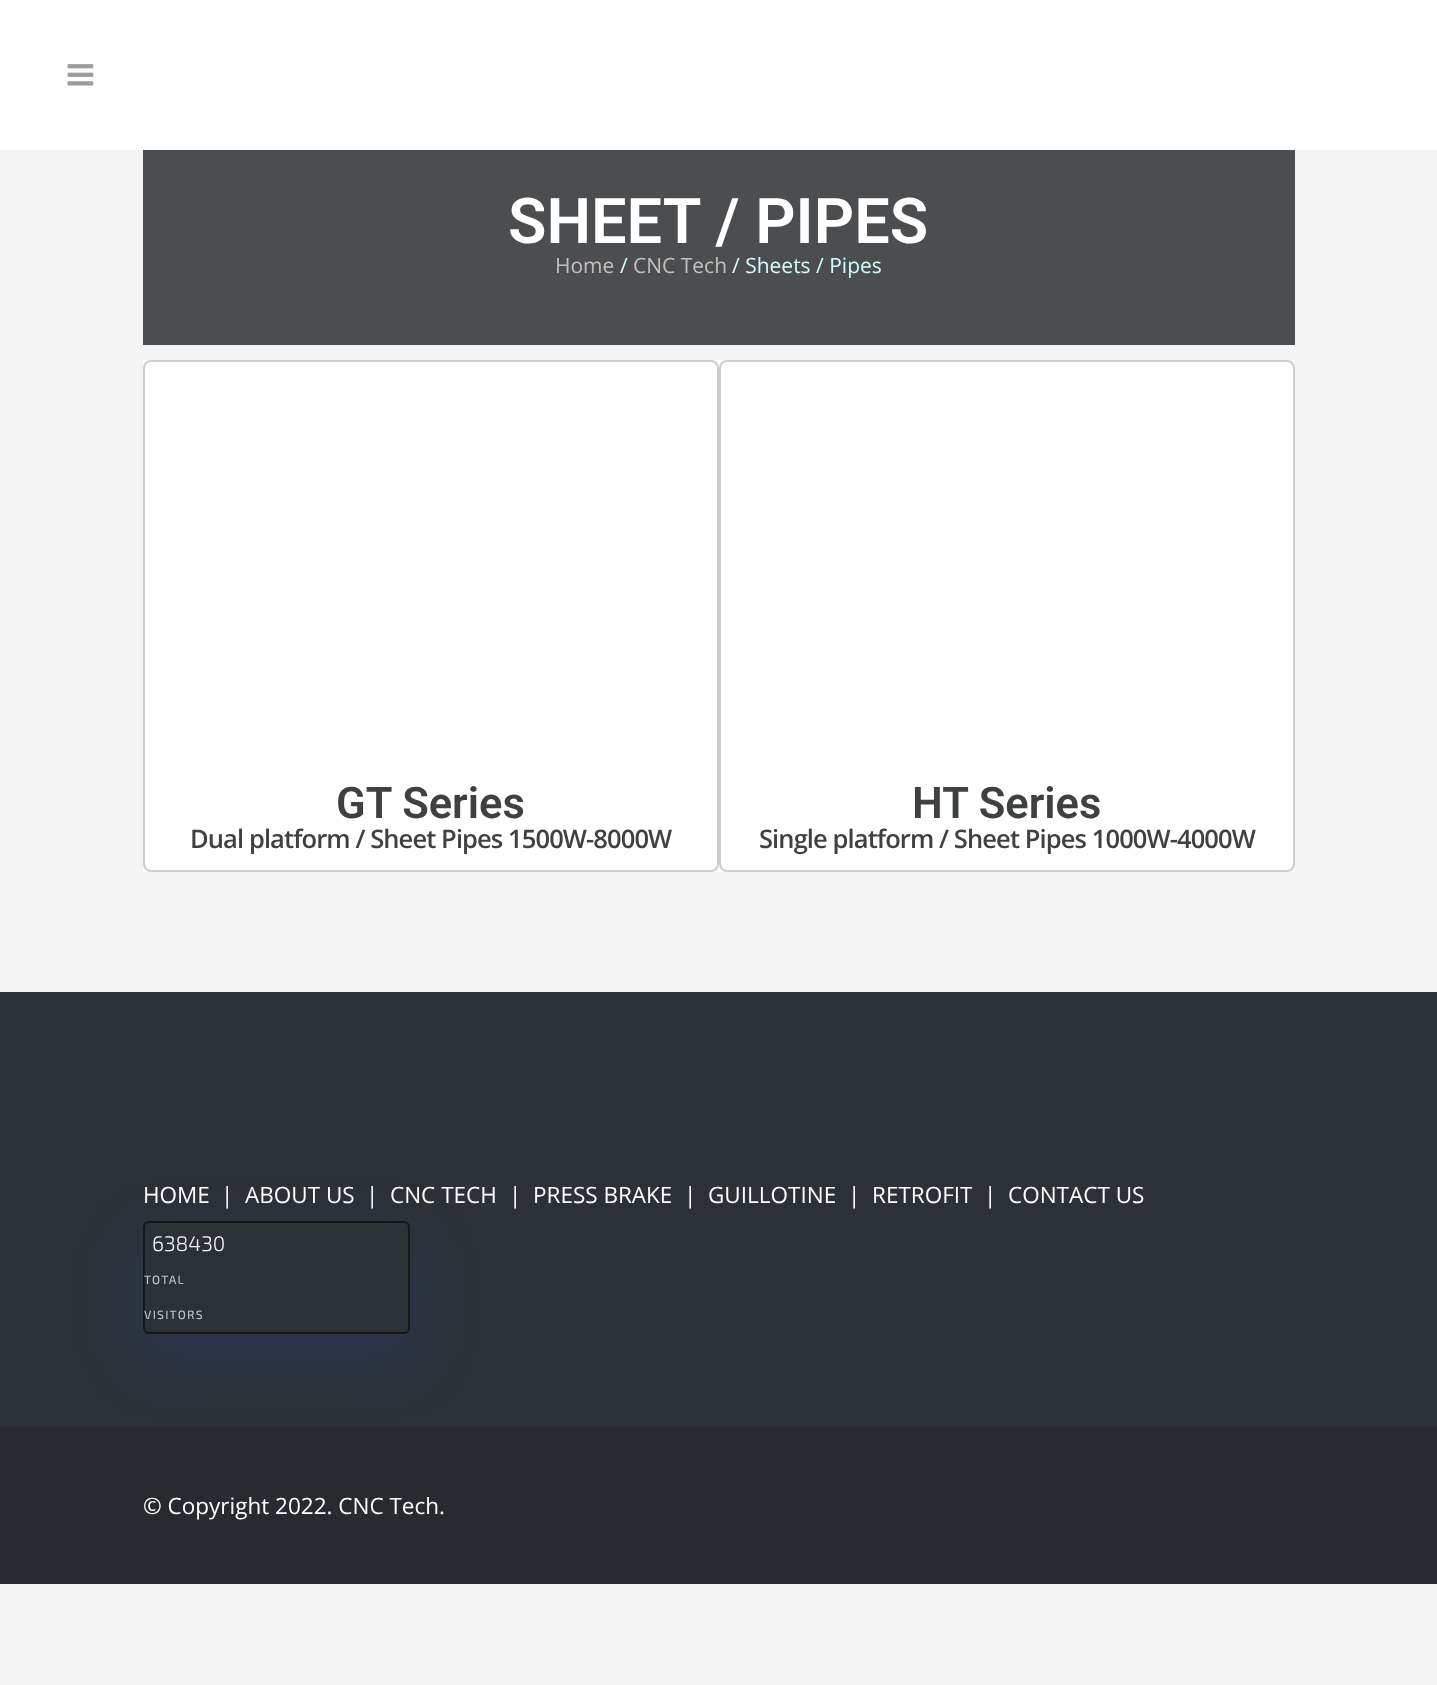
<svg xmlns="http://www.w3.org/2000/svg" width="1437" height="1685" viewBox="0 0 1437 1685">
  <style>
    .t1 { font: 600 63px Roboto; fill: #fff; }
    .t2 { font: 21px Open Sans; fill: #c0c0c0; }
    .t3 { font: 21px Open Sans; fill: #cfffff; }
    .t4 { font: 600 43.5px Roboto; fill: #3f4041; }
    .t5 { font: 600 25.5px Open Sans; letter-spacing: -0.9px; fill: #3f4041; }
    .t6 { font: 22.5px Open Sans; fill: #fff; }
    .t7 { font: 300 21px 'Exo 2'; fill: #f4f6fc; }
    .t8 { font: 500 12px 'Exo 2'; letter-spacing: 1.25px; fill: #b7c0cd; }
  </style>
  <defs>
    <clipPath id="clip1"><path d="M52 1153H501V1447H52ZM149 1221H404C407.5 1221 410 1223.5 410 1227V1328C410 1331.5 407.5 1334 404 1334H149C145.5 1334 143 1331.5 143 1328V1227C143 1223.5 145.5 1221 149 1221Z" clip-rule="evenodd"/></clipPath>
  </defs>
  <rect width="100%" height="100%" fill="#f4f4f4"/>
  <rect x="0" y="0" width="1437" height="150" fill="#fff"/>
  <image x="67" y="64" width="27" height="22" href="images/1.png"/>
  <rect x="143" y="150" width="1152" height="195" fill="#4c4d4f"/>
  <text x="508" y="243" class="t1">SHEET / PIPES</text>
  <text x="555" y="273" class="t2">Home</text>
  <text x="620" y="273" class="t3">/</text>
  <text x="633" y="273" class="t2">CNC Tech</text>
  <text x="732" y="273" class="t3">/ Sheets / Pipes</text>
  <rect x="143" y="360" width="1152" height="512" fill="#fff"/>
  <rect x="144" y="361" width="574" height="510" rx="7" fill="none" stroke="#cecece" stroke-width="2"/>
  <text x="336" y="818" class="t4">GT Series</text>
  <text x="190" y="848" class="t5">Dual platform / Sheet Pipes 1500W-8000W</text>
  <rect x="720" y="361" width="574" height="510" rx="7" fill="none" stroke="#cecece" stroke-width="2"/>
  <text x="912" y="818" class="t4">HT Series</text>
  <text x="759" y="848" class="t5">Single platform / Sheet Pipes 1000W-4000W</text>
  <rect x="0" y="992" width="1437" height="435" fill="#2c3137"/>
  <text x="143" y="1203" class="t6">HOME</text>
  <text x="221" y="1203" class="t6">|</text>
  <text x="245" y="1203" class="t6">ABOUT US</text>
  <text x="366" y="1203" class="t6">|</text>
  <text x="390" y="1203" class="t6">CNC TECH</text>
  <text x="509" y="1203" class="t6">|</text>
  <text x="533" y="1203" class="t6">PRESS BRAKE</text>
  <text x="684" y="1203" class="t6">|</text>
  <text x="708" y="1203" class="t6">GUILLOTINE</text>
  <text x="848" y="1203" class="t6">|</text>
  <text x="872" y="1203" class="t6">RETROFIT</text>
  <text x="984" y="1203" class="t6">|</text>
  <text x="1008" y="1203" class="t6">CONTACT US</text>
  <rect x="0" y="1427" width="1437" height="157" fill="#272b30"/>
  <g clip-path="url(#clip1)">
    <rect x="143" y="1244" width="267" height="112" rx="6" fill="#2a409159" filter="blur(30px)"/>
  </g>
  <rect x="144" y="1222" width="265" height="111" rx="5" fill="none" stroke="#171717" stroke-width="2"/>
  <text x="152" y="1251" class="t7">638430</text>
  <text x="144" y="1284" class="t8">TOTAL</text>
  <text x="144" y="1319" class="t8">VISITORS</text>
  <text x="143" y="1514" class="t6">© Copyright 2022. CNC Tech.</text>
</svg>
